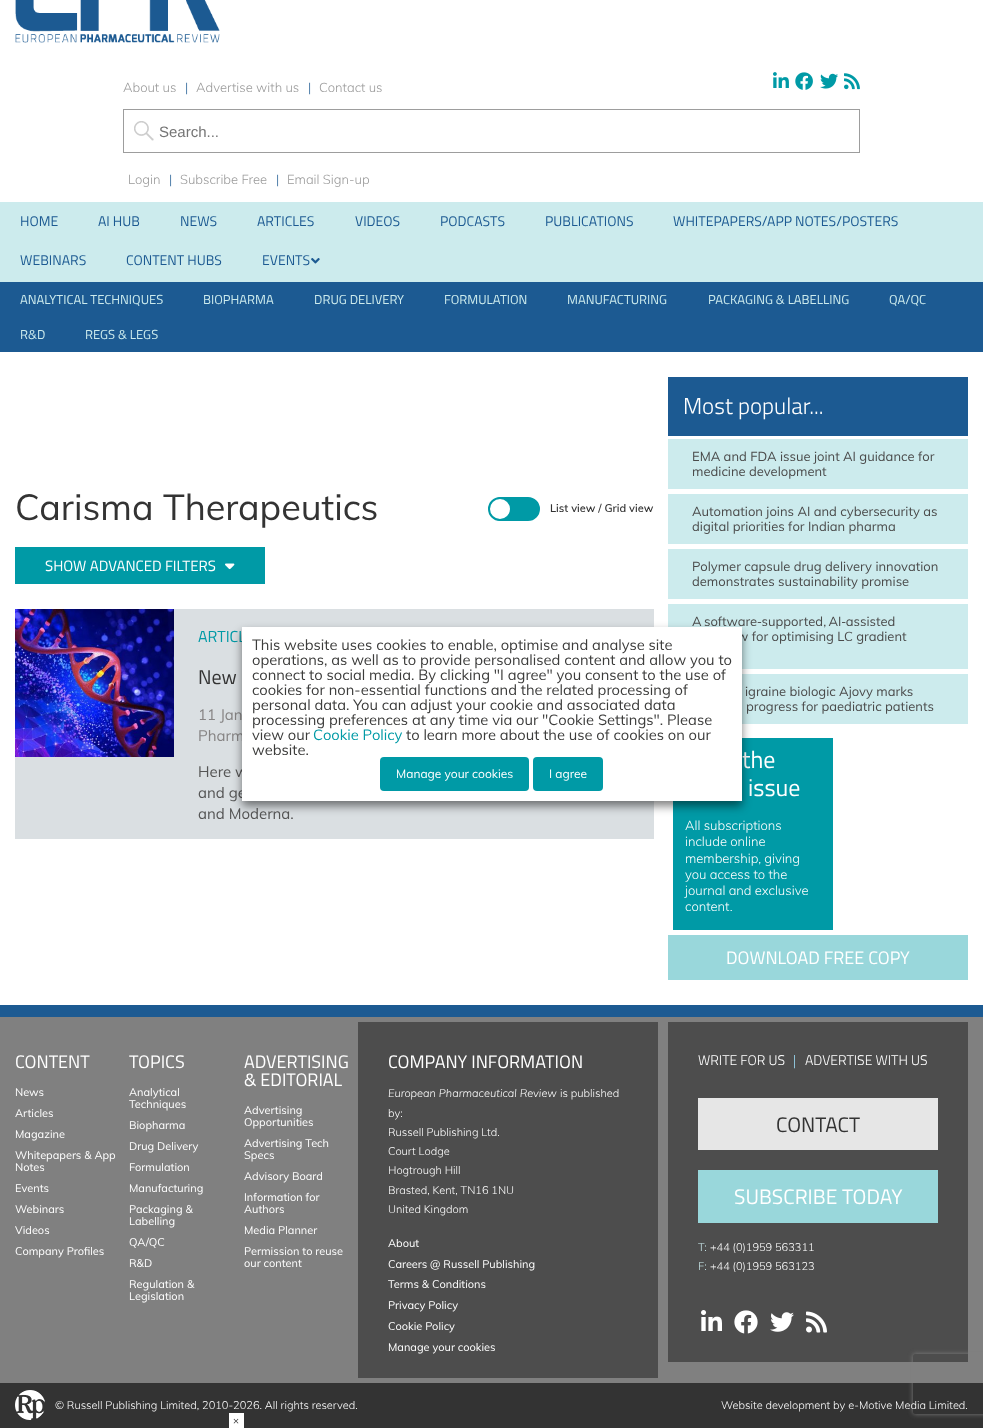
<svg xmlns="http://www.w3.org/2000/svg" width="983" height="1428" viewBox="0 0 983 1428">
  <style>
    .t1 { font: 300 13px Muli; fill: #999; }
    .t2 { font: 300 13px Muli; fill: #1c5a92; }
    .t3 { font: 15px Liberation Sans; fill: #757575; }
    .t4 { font: 14px Titillium Web; fill: #1c5a92; }
    .t5 { font: 13px Titillium Web; fill: #ccebed; }
    .t6 { font: 36px Muli; fill: #333; }
    .t7 { font: 600 11px Muli; fill: #333; }
    .t8 { font: 15px Titillium Web; fill: #fff; }
    .t9 { font: 16px Titillium Web; fill: #009aa6; }
    .t10 { font: 20px Titillium Web; fill: #333; }
    .t11 { font: 15px Muli; fill: #868484; }
    .t12 { font: 15px Muli; fill: #555; }
    .t13 { font: 300 23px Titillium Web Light; fill: #fff; }
    .t14 { font: 13px Muli; fill: #4a4a4a; }
    .t15 { font: 24px Titillium Web; fill: #fff; }
    .t16 { font: 300 13px Muli; fill: #fff; }
    .t17 { font: 18px Titillium Web; fill: #fff; }
    .t18 { font: 14.7px Muli; fill: #3c3c3b; }
    .t19 { font: 14.7px Muli; fill: #009aa6; }
    .t20 { font: 12px Muli; fill: #fff; }
    .t21 { font: 11px Muli; fill: #fff; }
    .t22 { font: italic 300 11px Muli; fill: #fff; }
    .t23 { font: 300 11px Muli; fill: #fff; }
    .t24 { font: 300 14px Titillium Web Light; fill: #fff; }
    .t25 { font: 300 14px Titillium Web Light; fill: #99d6ef; }
    .t26 { font: 21px Titillium Web; fill: #333; }
    .t27 { font: 21px Titillium Web; fill: #fff; }
    .t28 { font: 300 11px Muli; fill: #ccebed; }
    .t29 { font: 10px Muli; fill: #333; }
  </style>
  <defs>
    <clipPath id="clip1"><path d="M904 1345H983V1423H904ZM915 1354H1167C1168 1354 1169 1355 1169 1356V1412C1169 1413 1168 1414 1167 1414H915C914 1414 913 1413 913 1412V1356C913 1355 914 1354 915 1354Z" clip-rule="evenodd"/></clipPath>
  </defs>
  <rect width="100%" height="100%" fill="#fff"/>
  <image x="15" y="0" width="205" height="43" href="images/1.png"/>
  <text x="123" y="92" class="t1">About us</text>
  <text x="185" y="92" class="t2">|</text>
  <text x="196" y="92" class="t1">Advertise with us</text>
  <text x="308" y="92" class="t2">|</text>
  <text x="319" y="92" class="t1">Contact us</text>
  <image x="773" y="72" width="16" height="16" href="images/2.png"/>
  <image x="795" y="72" width="18" height="18" href="images/3.png"/>
  <image x="820" y="73" width="18" height="16" href="images/4.png"/>
  <image x="844" y="73" width="16" height="17" href="images/5.png"/>
  <image x="134" y="121" width="20" height="20" href="images/6.png"/>
  <rect x="123.5" y="109.5" width="736" height="43" fill="none" stroke="#9d9d9d"/>
  <text x="159" y="137" class="t3">Search...</text>
  <text x="128" y="184" class="t1">Login</text>
  <text x="169" y="184" class="t2">|</text>
  <text x="180" y="184" class="t1">Subscribe Free</text>
  <text x="276" y="184" class="t2">|</text>
  <text x="287" y="184" class="t1">Email Sign-up</text>
  <rect x="0" y="202" width="983" height="80" fill="#ccebed"/>
  <text x="20" y="226" class="t4">HOME</text>
  <text x="98" y="226" class="t4">AI HUB</text>
  <text x="180" y="226" class="t4">NEWS</text>
  <text x="257" y="226" class="t4">ARTICLES</text>
  <text x="355" y="226" class="t4">VIDEOS</text>
  <text x="440" y="226" class="t4">PODCASTS</text>
  <text x="545" y="226" class="t4">PUBLICATIONS</text>
  <text x="673" y="226" class="t4">WHITEPAPERS/APP NOTES/POSTERS</text>
  <text x="20" y="265" class="t4">WEBINARS</text>
  <text x="126" y="265" class="t4">CONTENT HUBS</text>
  <text x="262" y="265" class="t4">EVENTS</text>
  <image x="311" y="258" width="9" height="6" href="images/7.png"/>
  <rect x="0" y="282" width="983" height="70" fill="#1c5a92"/>
  <text x="20" y="304" class="t5">ANALYTICAL TECHNIQUES</text>
  <text x="203" y="304" class="t5">BIOPHARMA</text>
  <text x="314" y="304" class="t5">DRUG DELIVERY</text>
  <text x="444" y="304" class="t5">FORMULATION</text>
  <text x="567" y="304" class="t5">MANUFACTURING</text>
  <text x="708" y="304" class="t5">PACKAGING &amp; LABELLING</text>
  <text x="889" y="304" class="t5">QA/QC</text>
  <text x="20" y="339" class="t5">R&amp;D</text>
  <text x="85" y="339" class="t5">REGS &amp; LEGS</text>
  <text x="15" y="520" class="t6">Carisma Therapeutics</text>
  <rect x="491" y="498" width="48" height="22" rx="11" fill="#009aa6" stroke="#009aa6" stroke-width="2"/>
  <circle cx="500" cy="509" r="11" fill="#fff" stroke="#009aa6" stroke-width="2"/>
  <text x="550" y="512" class="t7">List view / Grid view</text>
  <rect x="15" y="547" width="250" height="37" fill="#009aa6"/>
  <text x="45" y="571" class="t8">SHOW ADVANCED FILTERS</text>
  <image x="225" y="563" width="10" height="7" href="images/8.png"/>
  <rect x="15" y="609" width="639" height="230" fill="#dadfe2"/>
  <image x="15" y="609" width="159" height="148" href="images/9.png"/>
  <text x="198" y="642" class="t9">ARTICL</text>
  <text x="198" y="684" class="t10">New</text>
  <text x="198" y="720" class="t11">11 Jan</text>
  <text x="198" y="741" class="t11">Pharm</text>
  <text x="198" y="777" class="t12">Here w</text>
  <text x="198" y="798" class="t12">and ge</text>
  <text x="198" y="819" class="t12">and Moderna.</text>
  <rect x="668" y="377" width="300" height="59" fill="#1c5a92"/>
  <text x="683" y="414" class="t13">Most popular...</text>
  <rect x="668" y="439" width="300" height="50" fill="#ccebed"/>
  <text x="692" y="461" class="t14">EMA and FDA issue joint AI guidance for</text>
  <text x="692" y="476" class="t14">medicine development</text>
  <rect x="668" y="494" width="300" height="50" fill="#ccebed"/>
  <text x="692" y="516" class="t14">Automation joins AI and cybersecurity as</text>
  <text x="692" y="531" class="t14">digital priorities for Indian pharma</text>
  <rect x="668" y="549" width="300" height="50" fill="#ccebed"/>
  <text x="692" y="571" class="t14">Polymer capsule drug delivery innovation</text>
  <text x="692" y="586" class="t14">demonstrates sustainability promise</text>
  <rect x="668" y="604" width="300" height="65" fill="#ccebed"/>
  <text x="692" y="626" word-spacing="-1" class="t14">A software‑supported, AI‑assisted</text>
  <text x="737" y="641" class="t14">w for optimising LC gradient</text>
  <rect x="742" y="674" width="226" height="50" fill="#ccebed"/>
  <text x="745" y="696" class="t14">igraine biologic Ajovy marks</text>
  <text x="746" y="711" class="t14">progress for paediatric patients</text>
  <rect x="673" y="738" width="160" height="192" fill="#009aa6"/>
  <text x="742" y="768" class="t15">the</text>
  <text x="748" y="796" class="t15">issue</text>
  <text x="685" y="830" class="t16">All subscriptions</text>
  <text x="685" y="846" class="t16">include online</text>
  <text x="685" y="863" class="t16">membership, giving</text>
  <text x="685" y="879" class="t16">you access to the</text>
  <text x="685" y="895" class="t16">journal and exclusive</text>
  <text x="685" y="911" class="t16">content.</text>
  <rect x="668" y="935" width="300" height="45" fill="#99d7db"/>
  <text x="726" y="964" class="t17">DOWNLOAD FREE COPY</text>
  <rect x="242" y="632" width="500" height="174" fill="#00000080" filter="blur(5px)"/>
  <rect x="242" y="627" width="500" height="174" fill="#fff"/>
  <text x="252" y="650" class="t18">This website uses cookies to enable, optimise and analyse site</text>
  <text x="252" y="665" class="t18">operations, as well as to provide personalised content and allow you to</text>
  <text x="252" y="680" class="t18">connect to social media. By clicking "I agree" you consent to the use of</text>
  <text x="252" y="695" class="t18">cookies for non-essential functions and the related processing of</text>
  <text x="252" y="710" class="t18">personal data. You can adjust your cookie and associated data</text>
  <text x="252" y="725" class="t18">processing preferences at any time via our "Cookie Settings". Please</text>
  <text x="252" y="740" class="t18">view our</text>
  <text x="313" y="740" class="t19">Cookie Policy</text>
  <text x="406" y="740" class="t18">to learn more about the use of cookies on our</text>
  <text x="252" y="755" class="t18">website.</text>
  <rect x="380" y="757" width="149" height="34" rx="4" fill="#009aa6"/>
  <text x="396" y="778" class="t20">Manage your cookies</text>
  <rect x="533" y="757" width="70" height="34" rx="4" fill="#009aa6"/>
  <text x="549" y="778" class="t20">I agree</text>
  <rect x="0" y="1017" width="983" height="366" fill="#808080"/>
  <rect x="0" y="1005" width="983" height="12" fill="#1c5a92"/>
  <text x="15" y="1068" class="t17">CONTENT</text>
  <text x="15" y="1096" class="t21">News</text>
  <text x="15" y="1117" class="t21">Articles</text>
  <text x="15" y="1138" class="t21">Magazine</text>
  <text x="15" y="1159" class="t21">Whitepapers &amp; App</text>
  <text x="15" y="1171" class="t21">Notes</text>
  <text x="15" y="1192" class="t21">Events</text>
  <text x="15" y="1213" class="t21">Webinars</text>
  <text x="15" y="1234" class="t21">Videos</text>
  <text x="15" y="1255" class="t21">Company Profiles</text>
  <text x="129" y="1068" class="t17">TOPICS</text>
  <text x="129" y="1096" class="t21">Analytical</text>
  <text x="129" y="1108" class="t21">Techniques</text>
  <text x="129" y="1129" class="t21">Biopharma</text>
  <text x="129" y="1150" class="t21">Drug Delivery</text>
  <text x="129" y="1171" class="t21">Formulation</text>
  <text x="129" y="1192" class="t21">Manufacturing</text>
  <text x="129" y="1213" class="t21">Packaging &amp;</text>
  <text x="129" y="1225" class="t21">Labelling</text>
  <text x="129" y="1246" class="t21">QA/QC</text>
  <text x="129" y="1267" class="t21">R&amp;D</text>
  <text x="129" y="1288" class="t21">Regulation &amp;</text>
  <text x="129" y="1300" class="t21">Legislation</text>
  <text x="244" y="1068" class="t17">ADVERTISING</text>
  <text x="244" y="1086" class="t17">&amp; EDITORIAL</text>
  <text x="244" y="1114" class="t21">Advertising</text>
  <text x="244" y="1126" class="t21">Opportunities</text>
  <text x="244" y="1147" class="t21">Advertising Tech</text>
  <text x="244" y="1159" class="t21">Specs</text>
  <text x="244" y="1180" class="t21">Advisory Board</text>
  <text x="244" y="1201" class="t21">Information for</text>
  <text x="244" y="1213" class="t21">Authors</text>
  <text x="244" y="1234" class="t21">Media Planner</text>
  <text x="244" y="1255" class="t21">Permission to reuse</text>
  <text x="244" y="1267" class="t21">our content</text>
  <rect x="358" y="1022" width="300" height="356" fill="#4d4d4d"/>
  <text x="388" y="1068" class="t17">COMPANY INFORMATION</text>
  <text x="388" y="1097" class="t22">European Pharmaceutical Review</text>
  <text x="560" y="1097" class="t23">is published</text>
  <text x="388" y="1117" class="t23">by:</text>
  <text x="388" y="1136" class="t23">Russell Publishing Ltd.</text>
  <text x="388" y="1155" class="t23">Court Lodge</text>
  <text x="388" y="1174" class="t23">Hogtrough Hill</text>
  <text x="388" y="1194" class="t23">Brasted, Kent, TN16 1NU</text>
  <text x="388" y="1213" class="t23">United Kingdom</text>
  <text x="388" y="1247" class="t21">About</text>
  <text x="388" y="1268" class="t21">Careers @ Russell Publishing</text>
  <text x="388" y="1288" class="t21">Terms &amp; Conditions</text>
  <text x="388" y="1309" class="t21">Privacy Policy</text>
  <text x="388" y="1330" class="t21">Cookie Policy</text>
  <text x="388" y="1351" class="t21">Manage your cookies</text>
  <rect x="668" y="1022" width="300" height="340" fill="#4d4d4d"/>
  <text x="698" y="1065" class="t24">WRITE FOR US</text>
  <text x="793" y="1065" class="t25">|</text>
  <text x="805" y="1065" class="t24">ADVERTISE WITH US</text>
  <rect x="698" y="1098" width="240" height="52" fill="#e6e6e6"/>
  <text x="776" y="1132" class="t26">CONTACT</text>
  <rect x="698" y="1170" width="240" height="53" fill="#99d7db"/>
  <text x="734" y="1204" class="t27">SUBSCRIBE TODAY</text>
  <text x="698" y="1251" class="t28">T:</text>
  <text x="710" y="1251" class="t23">+44 (0)1959 563311</text>
  <text x="698" y="1270" class="t28">F:</text>
  <text x="710" y="1270" class="t23">+44 (0)1959 563123</text>
  <image x="701" y="1310" width="21" height="21" href="images/10.png"/>
  <image x="734" y="1310" width="24" height="24" href="images/11.png"/>
  <image x="770" y="1312" width="24" height="20" href="images/12.png"/>
  <image x="806" y="1311" width="21" height="22" href="images/13.png"/>
  <rect x="0" y="1383" width="983" height="45" fill="#333"/>
  <g clip-path="url(#clip1)">
    <rect x="913" y="1354" width="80" height="60" rx="2" fill="#808080" filter="blur(2.5px)"/>
  </g>
  <image x="15" y="1390" width="30" height="30" href="images/14.png"/>
  <text x="55" y="1409" class="t23">© Russell Publishing Limited, 2010-2026. All rights reserved.</text>
  <text x="721" y="1409" class="t23">Website development by e-Motive Media Limited.</text>
  <rect x="229" y="1413" width="15" height="15" fill="#fff"/>
  <text x="233" y="1424" class="t29">×</text>
</svg>
